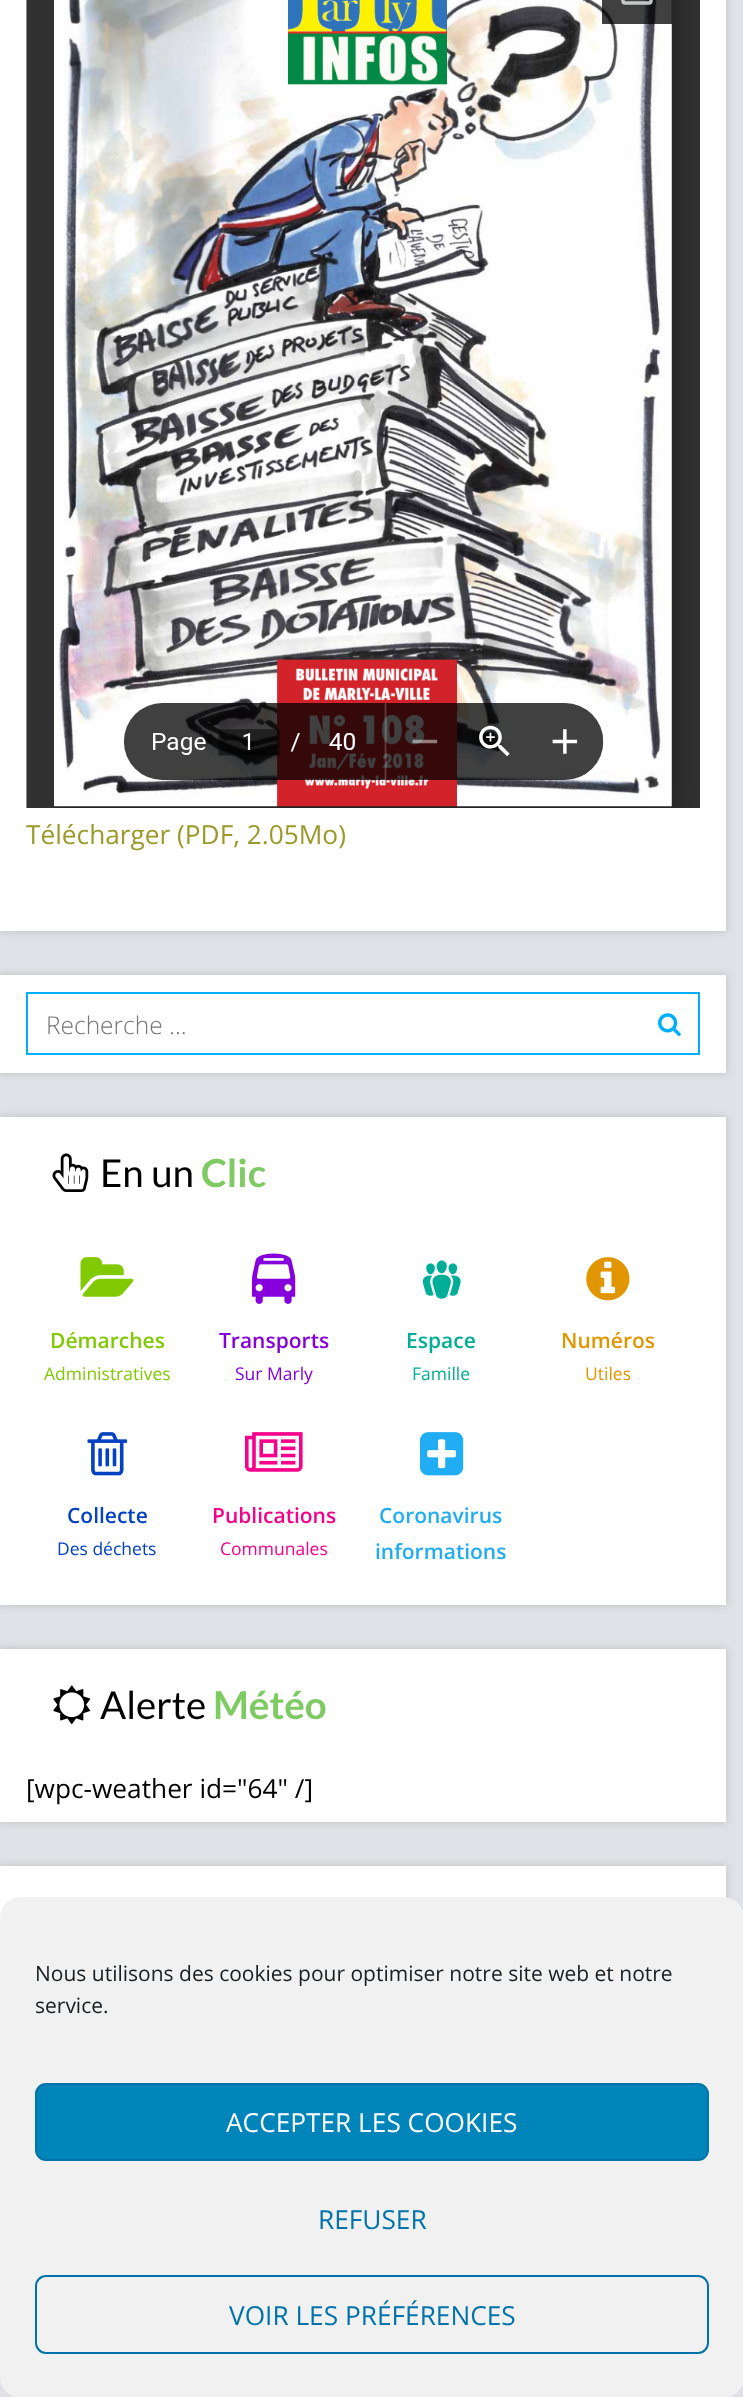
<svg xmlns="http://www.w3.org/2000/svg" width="743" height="2397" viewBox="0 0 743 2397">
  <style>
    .t1 { font: 26.25px Open Sans; fill: #9b9929; }
    .t2 { font: 300 24.5px Open Sans; fill: #757575; }
    .t3 { font: 38.5px Lato; fill: #000; }
    .t4 { font: bold 38.5px Lato; fill: #7eca63; }
    .t5 { font: 600 21px Open Sans; fill: #81c902; }
    .t6 { font: 17.5px Open Sans; fill: #81c902; }
    .t7 { font: 600 21px Open Sans; fill: #8500da; }
    .t8 { font: 17.5px Open Sans; fill: #8500da; }
    .t9 { font: 600 21px Open Sans; fill: #00ae97; }
    .t10 { font: 17.5px Open Sans; fill: #00ae97; }
    .t11 { font: 600 21px Open Sans; fill: #e19600; }
    .t12 { font: 17.5px Open Sans; fill: #e19600; }
    .t13 { font: 600 21px Open Sans; fill: #0442c1; }
    .t14 { font: 17.5px Open Sans; fill: #0442c1; }
    .t15 { font: 600 21px Open Sans; fill: #f6018b; }
    .t16 { font: 17.5px Open Sans; fill: #f6018b; }
    .t17 { font: 600 21px Open Sans; fill: #20adf3; }
    .t18 { font: 26.25px Open Sans; fill: #000; }
    .t19 { font: 21px Open Sans; fill: #191e23; }
    .t20 { font: 26.25px Open Sans; fill: #fff; }
    .t21 { font: 26.25px Open Sans; fill: #0073aa; }
  </style>
  <rect width="100%" height="100%" fill="#e0e2e8"/>
  <rect x="0" y="-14" width="726" height="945" fill="#bbb" filter="blur(4.5px)"/>
  <rect x="0" y="0" width="726" height="931" fill="#fff"/>
  <image x="26" y="0" width="674" height="808" href="images/1.png"/>
  <text x="26" y="844" class="t1">Télécharger (PDF, 2.05Mo)</text>
  <rect x="0" y="975" width="726" height="98" fill="#bbb" filter="blur(4.5px)"/>
  <rect x="0" y="975" width="726" height="98" fill="#fff"/>
  <rect x="27" y="993" width="672" height="61" fill="none" stroke="#01aefd" stroke-width="2"/>
  <text x="46" y="1034" class="t2">Recherche ...</text>
  <image x="658" y="1013" width="23" height="23" href="images/2.png"/>
  <rect x="0" y="1117" width="726" height="488" fill="#bbb" filter="blur(4.5px)"/>
  <rect x="0" y="1117" width="726" height="488" fill="#fff"/>
  <image x="52" y="1153" width="37" height="39" href="images/3.png"/>
  <text x="100" y="1187" class="t3">En un</text>
  <text x="201" y="1187" class="t4">Clic</text>
  <image x="80" y="1257" width="54" height="40" href="images/4.png"/>
  <text x="50" y="1348" class="t5">Démarches</text>
  <text x="44" y="1380" class="t6">Administratives</text>
  <image x="252" y="1253" width="44" height="51" href="images/5.png"/>
  <text x="219" y="1348" class="t7">Transports</text>
  <text x="235" y="1380" class="t8">Sur Marly</text>
  <image x="422" y="1260" width="39" height="39" href="images/6.png"/>
  <text x="406" y="1348" class="t9">Espace</text>
  <text x="412" y="1380" class="t10">Famille</text>
  <image x="586" y="1257" width="44" height="44" href="images/7.png"/>
  <text x="561" y="1348" class="t11">Numéros</text>
  <text x="585" y="1380" class="t12">Utiles</text>
  <image x="87" y="1432" width="41" height="44" href="images/8.png"/>
  <text x="67" y="1523" class="t13">Collecte</text>
  <text x="57" y="1555" class="t14">Des déchets</text>
  <image x="245" y="1432" width="58" height="40" href="images/9.png"/>
  <text x="212" y="1523" class="t15">Publications</text>
  <text x="220" y="1555" class="t16">Communales</text>
  <image x="420" y="1432" width="44" height="44" href="images/10.png"/>
  <text x="379" y="1523" class="t17">Coronavirus</text>
  <text x="375" y="1559" class="t17">informations</text>
  <rect x="0" y="1649" width="726" height="173" fill="#bbb" filter="blur(4.5px)"/>
  <rect x="0" y="1649" width="726" height="173" fill="#fff"/>
  <image x="53" y="1685" width="38" height="39" href="images/11.png"/>
  <text x="100" y="1719" class="t3">Alerte</text>
  <text x="213" y="1719" class="t4">Météo</text>
  <text x="26" y="1798" class="t18">[wpc-weather id="64" /]</text>
  <rect x="0" y="1866" width="726" height="304" fill="#bbb" filter="blur(4.5px)"/>
  <rect x="0" y="1866" width="726" height="52" fill="#fff"/>
  <rect x="0" y="1897" width="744" height="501" rx="21" fill="#f1f1f1"/>
  <text x="35" y="1981" class="t19">Nous utilisons des cookies pour optimiser notre site web et notre</text>
  <text x="35" y="2013" class="t19">service.</text>
  <rect x="36" y="2084" width="672" height="76" rx="10" fill="#0085ba" stroke="#0073aa" stroke-width="2"/>
  <text x="226" y="2132" class="t20">ACCEPTER LES COOKIES</text>
  <text x="318" y="2229" class="t21">REFUSER</text>
  <rect x="36" y="2276" width="672" height="77" rx="10" fill="none" stroke="#0073aa" stroke-width="2"/>
  <text x="229" y="2325" class="t21">VOIR LES PRÉFÉRENCES</text>
</svg>
